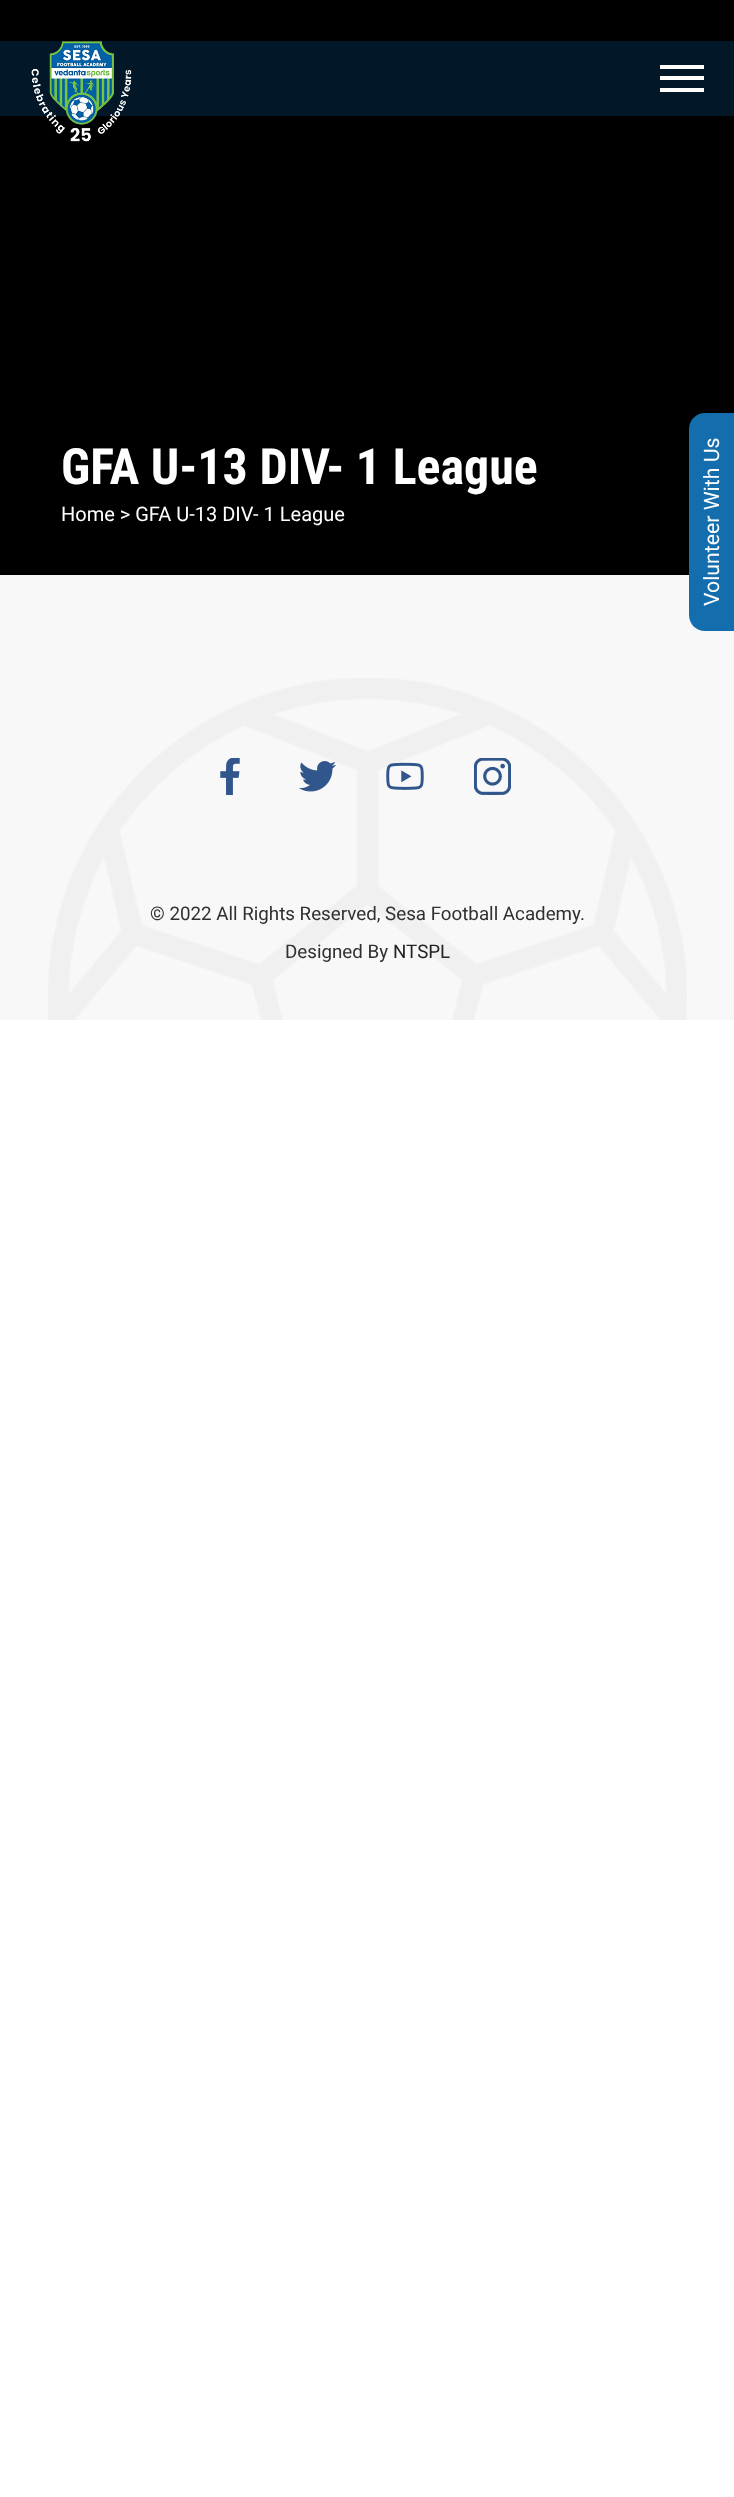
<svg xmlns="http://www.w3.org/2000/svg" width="734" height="2497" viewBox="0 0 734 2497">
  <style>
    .t1 { font: bold 50px Roboto Condensed; fill: #fff; }
    .t2 { font: 20px Roboto; fill: #fff; }
    .t3 { font: 21.25px Roboto; fill: #fff; }
    .t4 { font: 18.75px Roboto; fill: #313030; }
    .t5 { font: 18.75px Roboto; fill: #232323; }
  </style>
  <rect width="100%" height="100%" fill="#fff"/>
  <rect x="0" y="0" width="734" height="575" fill="#000"/>
  <rect x="0" y="41" width="734" height="75" fill="#021728"/>
  <image x="31" y="41" width="101" height="101" href="images/1.png"/>
  <rect x="660" y="65" width="44" height="4" fill="#fff"/>
  <rect x="660" y="76" width="44" height="4" fill="#fff"/>
  <rect x="660" y="88" width="44" height="4" fill="#fff"/>
  <text x="61" y="484" class="t1">GFA U-13 DIV- 1 League</text>
  <text x="61" y="521" class="t2">Home &gt; GFA U-13 DIV- 1 League</text>
  <rect x="0" y="575" width="734" height="445" fill="#f8f8f8"/>
  <path d="M689 615V429C689 420 696 413 705 413H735V631H705C696 631 689 624 689 615Z" fill="#146ead"/>
  <text x="719" y="606" transform="rotate(-90 719 606)" class="t3">Volunteer With Us</text>
  <image x="48" y="678" width="639" height="342" href="images/2.png"/>
  <image x="220" y="758" width="20" height="37" href="images/3.png"/>
  <image x="299" y="761" width="37" height="31" href="images/4.png"/>
  <image x="386" y="762" width="38" height="28" href="images/5.png"/>
  <image x="474" y="758" width="37" height="37" href="images/6.png"/>
  <text x="150" y="920" class="t4">© 2022 All Rights Reserved, Sesa Football Academy.</text>
  <text x="285" y="958" class="t4">Designed By</text>
  <text x="393" y="958" class="t5">NTSPL</text>
</svg>
